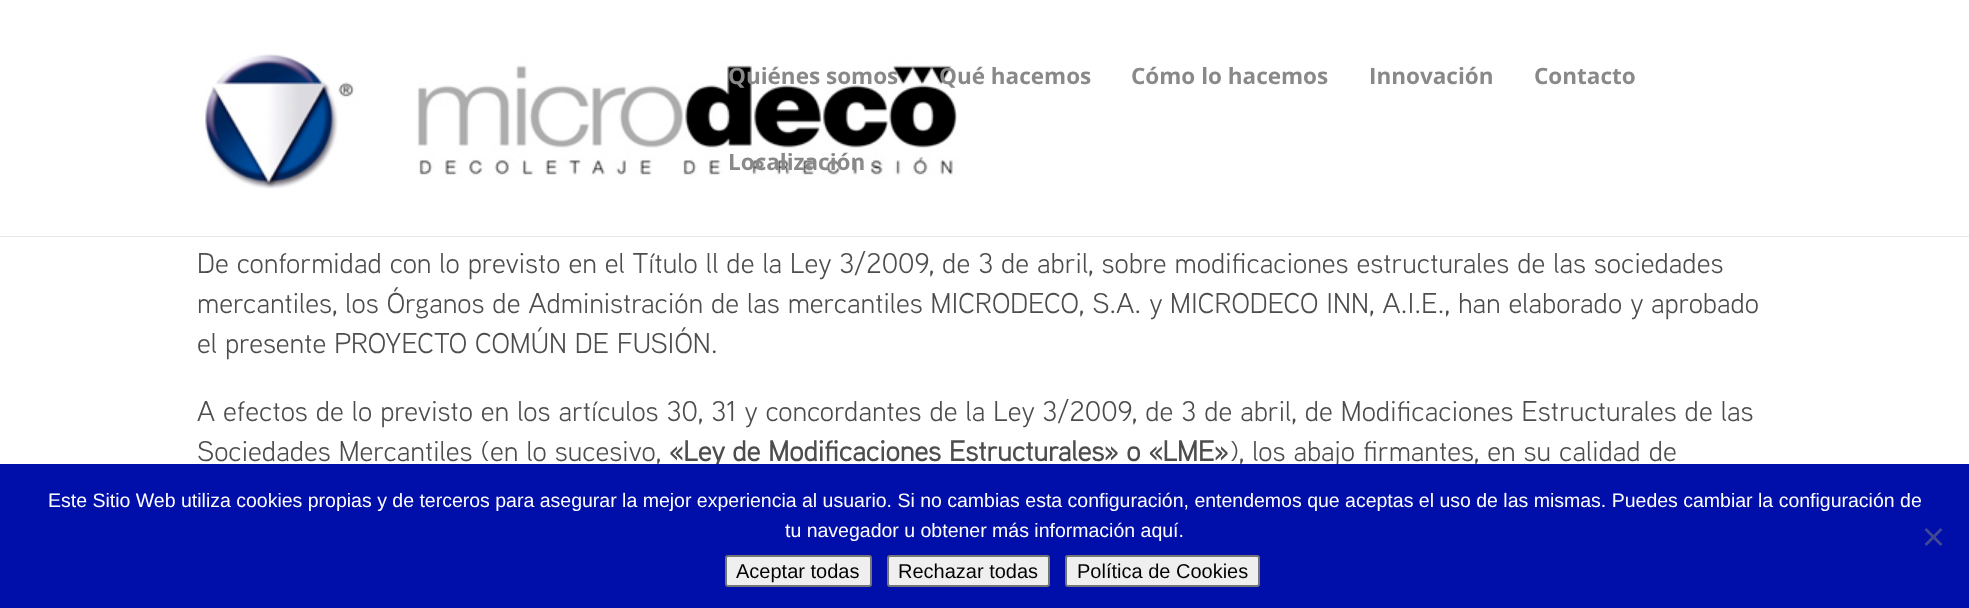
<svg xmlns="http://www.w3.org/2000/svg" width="1969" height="608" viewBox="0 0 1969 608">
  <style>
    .t1 { font: bold 22.5px Open Sans; fill: #898989; }
    .t2 { font: 28.5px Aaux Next; fill: #4d4d4d; }
    .t3 { font: bold 28.5px Aaux Next; fill: #4d4d4d; }
    .t4 { font: 19.5px Liberation Sans; fill: #fff; }
    .t5 { font: 20px Liberation Sans; fill: #000; }
  </style>
  <rect width="100%" height="100%" fill="#fff"/>
  <path d="M0 236V237H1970V2V236Z" fill="#e6e6e6"/>
  <image x="204" y="54" width="753" height="135" href="images/1.png"/>
  <text x="728" y="84" class="t1">Quiénes somos</text>
  <text x="939" y="84" class="t1">Qué hacemos</text>
  <text x="1131" y="84" class="t1">Cómo lo hacemos</text>
  <text x="1369" y="84" class="t1">Innovación</text>
  <text x="1534" y="84" class="t1">Contacto</text>
  <text x="728" y="170" class="t1">Localización</text>
  <text x="197" y="273" class="t2">De conformidad con lo previsto en el Título ll de la Ley 3/2009, de 3 de abril, sobre modificaciones estructurales de las sociedades</text>
  <text x="197" y="313" class="t2">mercantiles, los Órganos de Administración de las mercantiles MICRODECO, S.A. y MICRODECO INN, A.I.E., han elaborado y aprobado</text>
  <text x="197" y="353" class="t2">el presente PROYECTO COMÚN DE FUSIÓN.</text>
  <text x="197" y="421" class="t2">A efectos de lo previsto en los artículos 30, 31 y concordantes de la Ley 3/2009, de 3 de abril, de Modificaciones Estructurales de las</text>
  <text x="197" y="461" class="t2">Sociedades Mercantiles (en lo sucesivo,</text>
  <text x="669" y="461" class="t3">«Ley de Modificaciones Estructurales» o «LME»</text>
  <text x="1229" y="461" class="t2">), los abajo firmantes, en su calidad de</text>
  <rect x="0" y="464" width="1969" height="144" fill="#000eaa"/>
  <text x="48" y="507" class="t4">Este Sitio Web utiliza cookies propias y de terceros para asegurar la mejor experiencia al usuario. Si no cambias esta configuración, entendemos que aceptas el uso de las mismas. Puedes cambiar la configuración de</text>
  <text x="785" y="537" class="t4">tu navegador u obtener más información aquí.</text>
  <path d="M1940.5 528L1942.5 530L1926.5 546L1924.5 544Z" fill="#404795"/>
  <path d="M1924.5 530L1926.5 528L1942.5 544L1940.5 546Z" fill="#404795"/>
  <rect x="726" y="556" width="145" height="30" rx="2" fill="#efefef" stroke="#767676" stroke-width="2"/>
  <text x="736" y="578" class="t5">Aceptar todas</text>
  <rect x="888" y="556" width="161" height="30" rx="2" fill="#efefef" stroke="#767676" stroke-width="2"/>
  <text x="898" y="578" class="t5">Rechazar todas</text>
  <rect x="1066" y="556" width="193" height="30" rx="2" fill="#efefef" stroke="#767676" stroke-width="2"/>
  <text x="1077" y="578" class="t5">Política de Cookies</text>
</svg>
